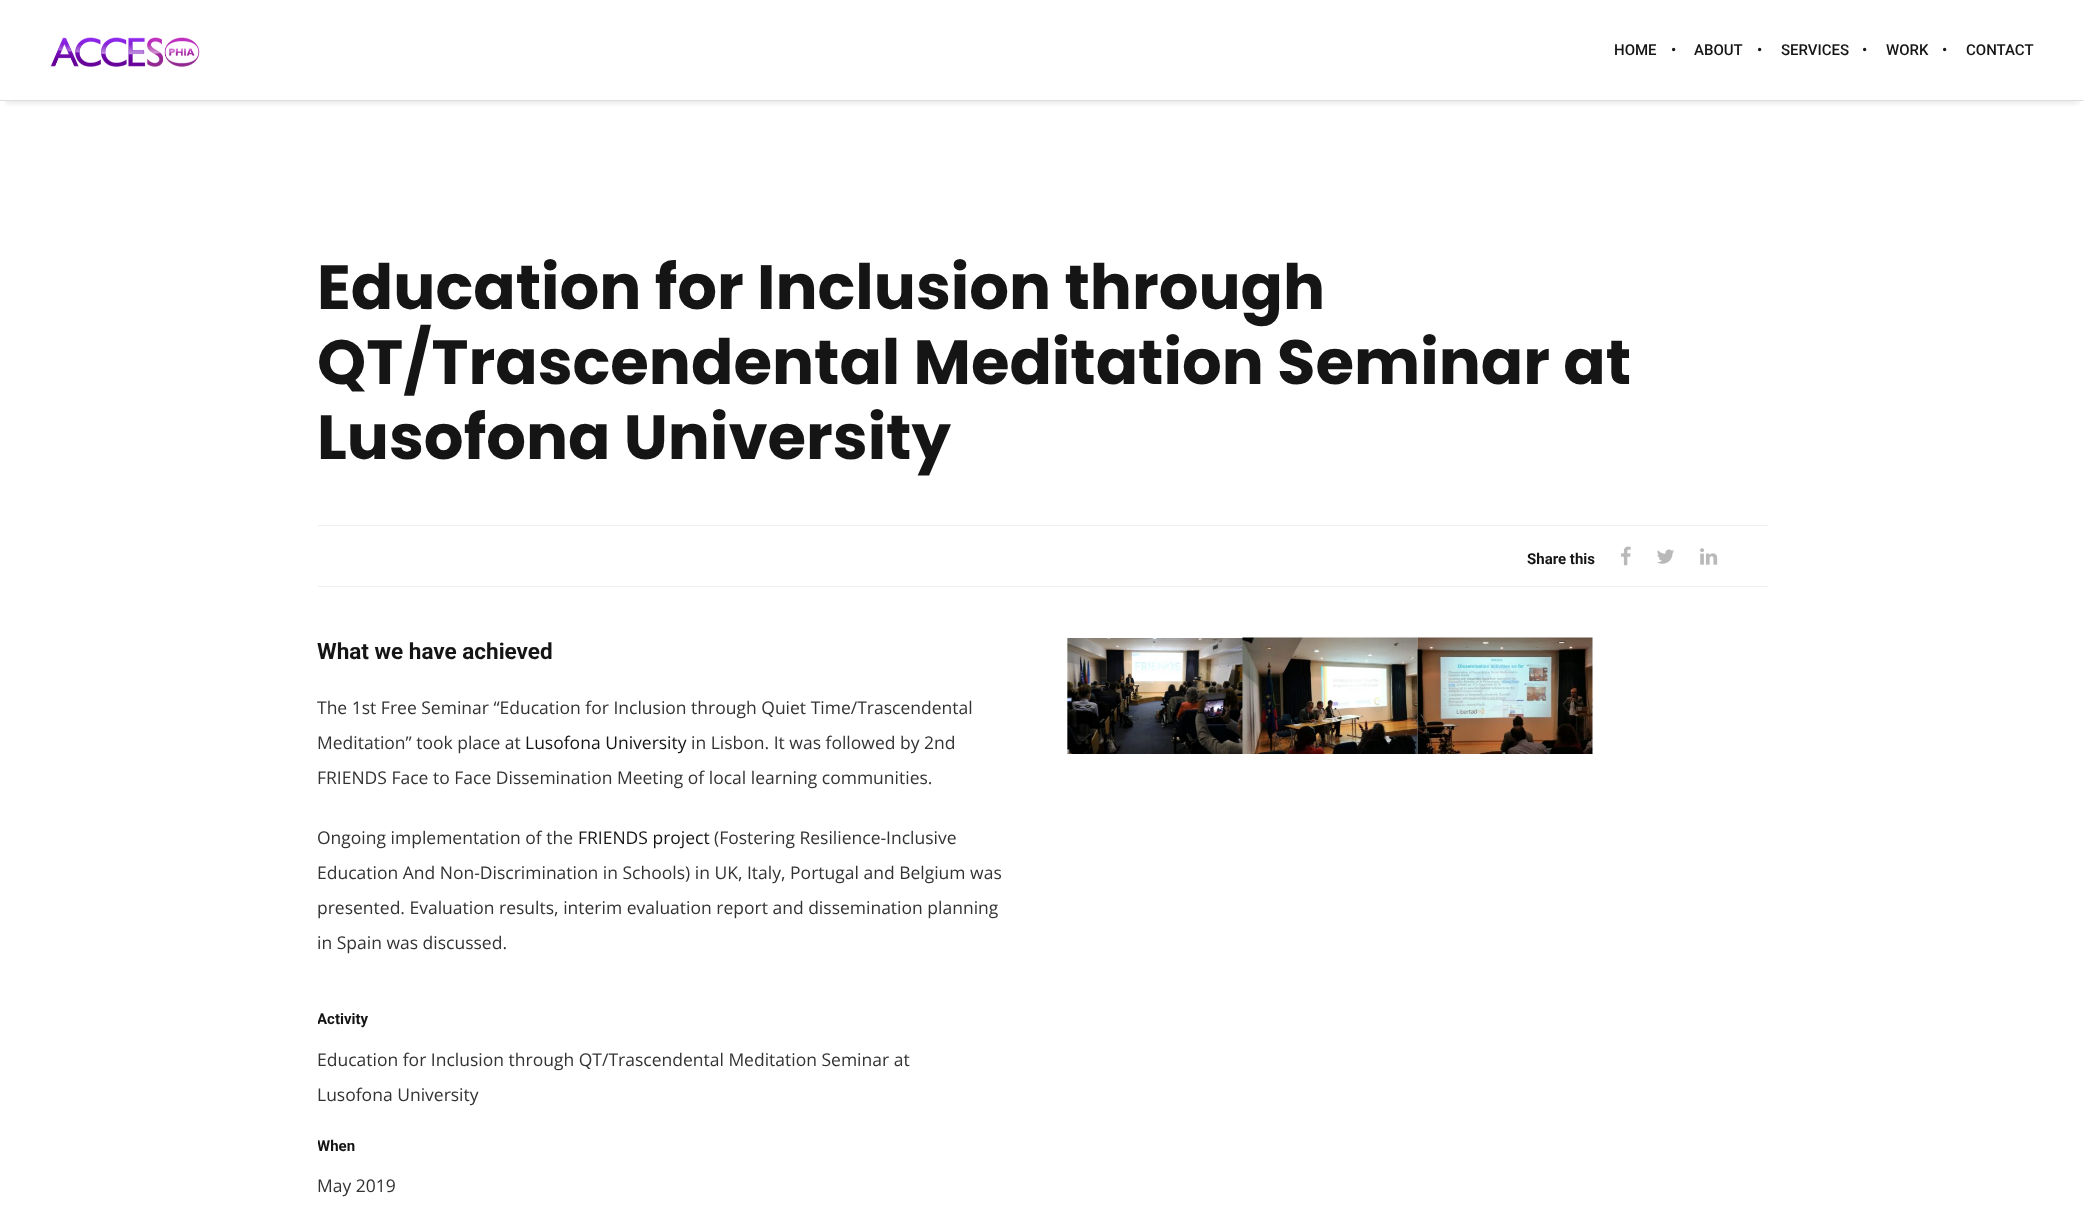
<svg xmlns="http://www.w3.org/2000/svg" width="2083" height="1208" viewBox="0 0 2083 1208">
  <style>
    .t1 { font: 500 15px Roboto; fill: #151515; }
    .t2 { font: bold 62.5px Poppins; fill: #151515; }
    .t3 { font: bold 15px Roboto; fill: #151515; }
    .t4 { font: bold 22.5px Roboto; fill: #151515; }
    .t5 { font: 17.5px Open Sans; fill: #333; }
    .t6 { font: 17.5px Open Sans; fill: #151515; }
  </style>
  <defs>
    <clipPath id="clip1"><rect x="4" y="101" width="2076" height="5"/></clipPath>
    <clipPath id="clip2"><rect x="318" y="1011" width="700" height="193"/></clipPath>
  </defs>
  <rect width="100%" height="100%" fill="#fff"/>
  <g clip-path="url(#clip1)">
    <rect x="5" y="11" width="2074" height="92" fill="#0000001a" filter="blur(3px)"/>
  </g>
  <rect x="0" y="100" width="2083" height="1" fill="#ddd"/>
  <image x="50" y="37" width="150" height="30" href="images/1.png"/>
  <text x="1614" y="55" class="t1">HOME</text>
  <text x="1671" y="55" class="t1">•</text>
  <text x="1694" y="55" class="t1">ABOUT</text>
  <text x="1757" y="55" class="t1">•</text>
  <text x="1781" y="55" class="t1">SERVICES</text>
  <text x="1862" y="55" class="t1">•</text>
  <text x="1886" y="55" class="t1">WORK</text>
  <text x="1942" y="55" class="t1">•</text>
  <text x="1966" y="55" class="t1">CONTACT</text>
  <text x="317" y="309" class="t2">Education for Inclusion through</text>
  <text x="317" y="384" class="t2">QT/Trascendental Meditation Seminar at</text>
  <text x="317" y="459" class="t2">Lusofona University</text>
  <rect x="318" y="525" width="1450" height="1" fill="#efefef"/>
  <rect x="318" y="586" width="1450" height="1" fill="#efefef"/>
  <text x="1527" y="564" class="t3">Share this</text>
  <image x="1621" y="546" width="10" height="20" href="images/2.png"/>
  <image x="1657" y="549" width="17" height="15" href="images/3.png"/>
  <image x="1700" y="548" width="18" height="17" href="images/4.png"/>
  <text x="317" y="659" class="t4">What we have achieved</text>
  <text x="317" y="714" class="t5">The 1st Free Seminar “Education for Inclusion through Quiet Time/Trascendental</text>
  <text x="317" y="749" class="t5">Meditation” took place at</text>
  <text x="525" y="749" class="t6">Lusofona University</text>
  <text x="691" y="749" class="t5">in Lisbon. It was followed by 2nd</text>
  <text x="317" y="784" class="t5">FRIENDS Face to Face Dissemination Meeting of local learning communities.</text>
  <text x="317" y="844" class="t5">Ongoing implementation of the</text>
  <text x="578" y="844" class="t6">FRIENDS project</text>
  <text x="714" y="844" class="t5">(Fostering Resilience-Inclusive</text>
  <text x="317" y="879" class="t5">Education And Non-Discrimination in Schools) in UK, Italy, Portugal and Belgium was</text>
  <text x="317" y="914" class="t5">presented. Evaluation results, interim evaluation report and dissemination planning</text>
  <text x="317" y="949" class="t5">in Spain was discussed.</text>
  <g clip-path="url(#clip2)">
    <text x="317" y="1024" class="t3">Activity</text>
  </g>
  <text x="317" y="1066" class="t5">Education for Inclusion through QT/Trascendental Meditation Seminar at</text>
  <text x="317" y="1101" class="t5">Lusofona University</text>
  <g clip-path="url(#clip2)">
    <text x="317" y="1151" class="t3">When</text>
  </g>
  <text x="317" y="1192" class="t5">May 2019</text>
  <image x="1067" y="638" width="176" height="116" href="images/5.png"/>
  <image x="1242" y="637" width="176" height="117" href="images/6.png"/>
  <image x="1417" y="637" width="176" height="117" href="images/7.png"/>
</svg>
